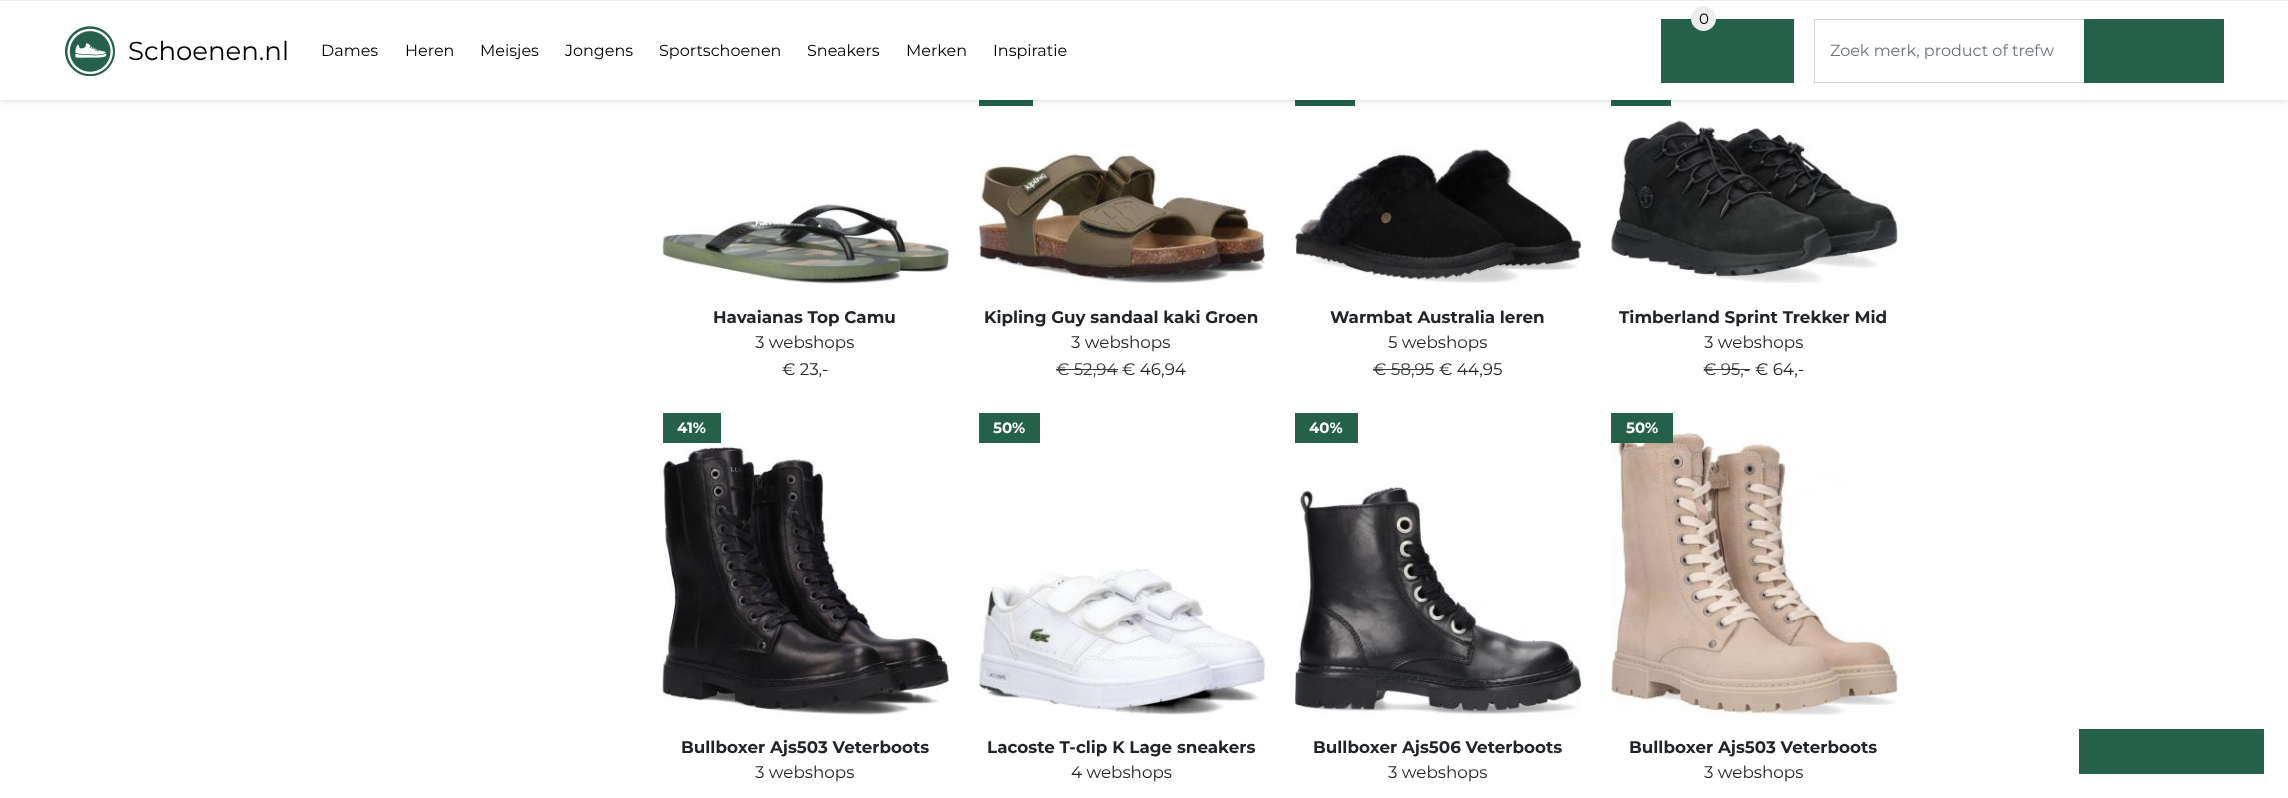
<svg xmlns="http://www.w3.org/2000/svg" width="2288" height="798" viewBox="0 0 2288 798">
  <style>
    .t1 { font: 26px Montserrat; fill: #000; }
    .t2 { font: 16px Montserrat; fill: #000; }
    .t3 { font: 15px Montserrat; fill: #000; }
    .t4 { font: 16px Montserrat; fill: #6c757d; }
    .t5 { font: bold 16.75px Montserrat; fill: #212529; }
    .t6 { font: 16.75px Montserrat; fill: #212529; }
    .t7 { font: 16.75px Montserrat; fill: #373b3e; }
    .t8 { font: bold 15px Montserrat; fill: #fff; }
  </style>
  <rect width="100%" height="100%" fill="#fff"/>
  <rect x="979" y="100" width="54" height="6" fill="#24604a"/>
  <rect x="1295" y="100" width="60" height="6" fill="#24604a"/>
  <rect x="1611" y="100" width="60" height="6" fill="#24604a"/>
  <rect x="1" y="4" width="2287" height="97" fill="#00000026" filter="blur(3px)"/>
  <rect x="0" y="1" width="2288" height="99" fill="#fff"/>
  <rect x="0" y="0" width="2288" height="1" fill="#eee"/>
  <image x="65" y="26" width="50" height="50" href="images/1.png"/>
  <text x="128" y="60" class="t1">Schoenen.nl</text>
  <text x="321" y="56" class="t2">Dames</text>
  <text x="405" y="56" class="t2">Heren</text>
  <text x="480" y="56" class="t2">Meisjes</text>
  <text x="565" y="56" class="t2">Jongens</text>
  <text x="659" y="56" class="t2">Sportschoenen</text>
  <text x="807" y="56" class="t2">Sneakers</text>
  <text x="906" y="56" class="t2">Merken</text>
  <text x="993" y="56" class="t2">Inspiratie</text>
  <rect x="1661" y="19" width="133" height="64" fill="#24604a"/>
  <circle cx="1703.5" cy="18.5" r="12.5" fill="#eee"/>
  <text x="1699" y="24" class="t3">0</text>
  <rect x="1814.5" y="19.5" width="409" height="63" fill="none" stroke="#ced4da"/>
  <text x="1830" y="56" class="t4">Zoek merk, product of trefw</text>
  <rect x="2084" y="19" width="140" height="64" fill="#24604a"/>
  <image x="662" y="204" width="287" height="80" href="images/2.png"/>
  <text x="713" y="323" class="t5">Havaianas Top Camu</text>
  <text x="755" y="348" class="t6">3 webshops</text>
  <text x="782" y="375" class="t6">€ 23,-</text>
  <image x="978" y="154" width="287" height="130" href="images/3.png"/>
  <text x="984" y="323" class="t5">Kipling Guy sandaal kaki Groen</text>
  <text x="1071" y="348" class="t6">3 webshops</text>
  <text x="1056" y="375" class="t7">€ 52,94</text>
  <rect x="1056" y="369" width="62" height="1" fill="#373b3e"/>
  <text x="1122" y="375" class="t6">€ 46,94</text>
  <image x="1295" y="149" width="287" height="134" href="images/4.png"/>
  <text x="1330" y="323" class="t5">Warmbat Australia leren</text>
  <text x="1388" y="348" class="t6">5 webshops</text>
  <text x="1373" y="375" class="t7">€ 58,95</text>
  <rect x="1373" y="369" width="61" height="1" fill="#373b3e"/>
  <text x="1439" y="375" class="t6">€ 44,95</text>
  <image x="1611" y="120" width="287" height="163" href="images/5.png"/>
  <text x="1619" y="323" class="t5">Timberland Sprint Trekker Mid</text>
  <text x="1704" y="348" class="t6">3 webshops</text>
  <text x="1703" y="375" class="t7">€ 95,-</text>
  <rect x="1704" y="369" width="46" height="1" fill="#373b3e"/>
  <text x="1755" y="375" class="t6">€ 64,-</text>
  <rect x="663" y="413" width="58" height="30" fill="#24604a"/>
  <text x="677" y="433" class="t8">41%</text>
  <image x="662" y="447" width="287" height="268" href="images/6.png"/>
  <text x="681" y="753" class="t5">Bullboxer Ajs503 Veterboots</text>
  <text x="755" y="778" class="t6">3 webshops</text>
  <rect x="979" y="413" width="61" height="30" fill="#24604a"/>
  <text x="993" y="433" class="t8">50%</text>
  <image x="979" y="568" width="286" height="147" href="images/7.png"/>
  <text x="987" y="753" class="t5">Lacoste T-clip K Lage sneakers</text>
  <text x="1071" y="778" class="t6">4 webshops</text>
  <rect x="1295" y="413" width="63" height="30" fill="#24604a"/>
  <text x="1309" y="433" class="t8">40%</text>
  <image x="1295" y="487" width="287" height="228" href="images/8.png"/>
  <text x="1313" y="753" class="t5">Bullboxer Ajs506 Veterboots</text>
  <text x="1388" y="778" class="t6">3 webshops</text>
  <image x="1611" y="432" width="287" height="283" href="images/9.png"/>
  <rect x="1611" y="413" width="62" height="30" fill="#24604a"/>
  <text x="1626" y="433" class="t8">50%</text>
  <text x="1629" y="753" class="t5">Bullboxer Ajs503 Veterboots</text>
  <text x="1704" y="778" class="t6">3 webshops</text>
  <rect x="2079" y="729" width="185" height="45" fill="#24604a"/>
</svg>
